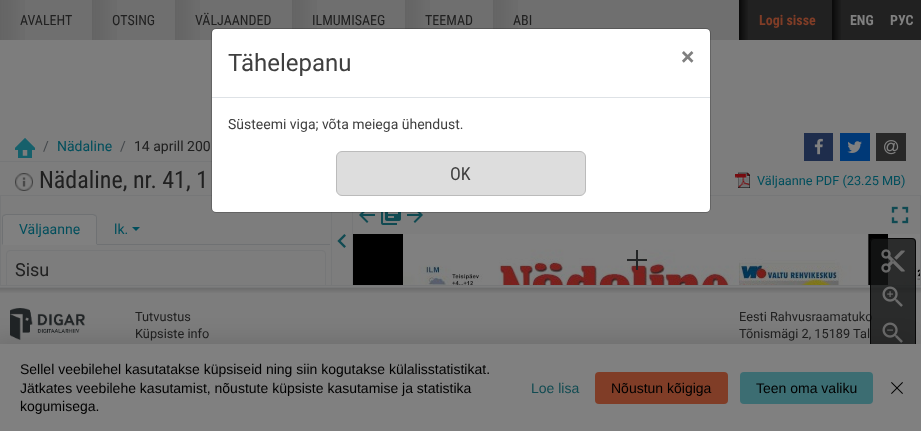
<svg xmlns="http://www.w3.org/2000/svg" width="921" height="431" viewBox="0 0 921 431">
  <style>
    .t1 { font: 14px Roboto Condensed; fill: #202020; }
    .t2 { font: bold 14px Roboto Condensed; fill: #803d27; }
    .t3 { font: bold 14px Roboto Condensed; fill: #808080; }
    .t4 { font: 14px Roboto; fill: #43474b; }
    .t5 { font: 14px Roboto; fill: #004e5c; }
    .t6 { font: 14px Roboto; fill: #202020; }
    .t7 { font: 24px Roboto; fill: #3f3f3f; }
    .t8 { font: bold 24px Roboto; fill: #808080; }
    .t9 { font: 14px Roboto; fill: #3f3f3f; }
    .t10 { font: 18px Roboto Condensed; fill: #3f3f3f; }
    .t11 { font: 24px Roboto Condensed; fill: #202020; }
    .t12 { font: 12.75px Roboto; fill: #004e5c; }
    .t13 { font: 18px Roboto; fill: #202020; }
    .t14 { font: 12.75px Roboto; fill: #202020; }
    .t15 { font: 14px Liberation Sans; fill: #000; }
    .t16 { font: 14px Liberation Sans; fill: #114b52; }
  </style>
  <defs>
    <clipPath id="clip1"><rect x="1" y="250" width="330" height="35"/></clipPath>
  </defs>
  <rect width="100%" height="100%" fill="#7d7d7d"/>
  <rect x="0" y="0" width="739" height="40" fill="#6f6f6f"/>
  <image x="0" y="0" width="25" height="40" href="images/1.png"/>
  <text x="20" y="25" class="t1">AVALEHT</text>
  <image x="92" y="0" width="25" height="40" href="images/1.png"/>
  <text x="112" y="25" class="t1">OTSING</text>
  <image x="175" y="0" width="25" height="40" href="images/1.png"/>
  <text x="195" y="25" class="t1">VÄLJAANDED</text>
  <image x="292" y="0" width="25" height="29" href="images/2.png"/>
  <text x="312" y="25" class="t1">ILMUMISAEG</text>
  <image x="405" y="0" width="25" height="29" href="images/2.png"/>
  <text x="425" y="25" class="t1">TEEMAD</text>
  <image x="493" y="0" width="25" height="29" href="images/2.png"/>
  <text x="513" y="25" class="t1">ABI</text>
  <rect x="739" y="0" width="182" height="40" fill="#212121"/>
  <image x="832" y="0" width="9" height="40" href="images/3.png"/>
  <image x="739" y="0" width="9" height="40" href="images/3.png"/>
  <text x="759" y="25" class="t2">Logi sisse</text>
  <text x="850" y="25" class="t3">ENG</text>
  <text x="890" y="25" class="t3">РУС</text>
  <rect x="0" y="161" width="212" height="1" fill="#767778"/>
  <image x="15" y="138" width="20" height="20" href="images/4.png"/>
  <text x="43" y="151" class="t4">/</text>
  <text x="57" y="151" class="t5">Nädaline</text>
  <text x="120" y="151" class="t4">/</text>
  <text x="134" y="151" class="t6">14 aprill 200</text>
  <rect x="804" y="133" width="29" height="28" fill="#1e2d4c"/>
  <image x="814" y="138" width="9" height="17" href="images/5.png"/>
  <rect x="840" y="133" width="30" height="28" fill="#003977"/>
  <image x="847" y="141" width="15" height="12" href="images/6.png"/>
  <rect x="876" y="133" width="30" height="28" fill="#282828"/>
  <image x="884" y="140" width="15" height="15" href="images/7.png"/>
  <rect x="0.5" y="195.5" width="920" height="90" fill="none" stroke="#767778"/>
  <rect x="212" y="29" width="498" height="183" rx="4" fill="#fff"/>
  <rect x="352" y="212" width="1" height="73" fill="#767778"/>
  <rect x="331" y="212" width="1" height="73" fill="#767778"/>
  <image x="359" y="212" width="16" height="11" href="images/11.png"/>
  <image x="381" y="212" width="20" height="13" href="images/12.png"/>
  <image x="407" y="212" width="16" height="11" href="images/13.png"/>
  <rect x="211.5" y="28.5" width="499" height="184" rx="4.5" fill="none" stroke="#00000033"/>
  <rect x="212" y="97" width="498" height="1" fill="#dee2e6"/>
  <text x="228" y="71" class="t7">Tähelepanu</text>
  <text x="681" y="65" class="t8">×</text>
  <text x="228" y="129" class="t9">Süsteemi viga; võta meiega ühendust.</text>
  <rect x="336.5" y="151.5" width="249" height="44" rx="5.5" fill="#ddd" stroke="#bbb"/>
  <text x="450" y="180" class="t10">OK</text>
  <image x="15" y="173" width="18" height="18" href="images/8.png"/>
  <text x="39" y="188" class="t11">Nädaline, nr. 41, 1</text>
  <image x="735" y="172" width="15" height="16" href="images/9.png"/>
  <text x="757" y="185" class="t12">Väljaanne PDF (23.25 MB)</text>
  <rect x="97" y="244" width="233" height="1" fill="#6f7173"/>
  <path d="M6 214H93C95 214 97 216 97 218V245H2V218C2 216 4 214 6 214Z" fill="#808080"/>
  <path d="M6 214L3 215L4 216L6 215H93L95 216L96 215L93 214Z" fill="#6f7173"/>
  <path d="M97 245V218C97 217 96.5 216 96 215L95 216C96 216 96 217 96 218V244Z" fill="#6f7173"/>
  <path d="M97 245L96 244H3L2 245Z" fill="#808080"/>
  <path d="M2 245L3 244V218C3 217 3 216 4 216L3 215C2.5 216 2 217 2 218Z" fill="#6f7173"/>
  <text x="19" y="234" class="t5">Väljaanne</text>
  <text x="114" y="234" class="t5">lk.</text>
  <path d="M132 227H140L136 231Z" fill="#004e5c"/>
  <image x="0" y="288" width="921" height="5" href="images/21.png"/>
  <rect x="0" y="287" width="921" height="1" fill="#767778"/>
  <g clip-path="url(#clip1)">
    <rect x="6.5" y="250.5" width="319" height="39" rx="3.5" fill="none" stroke="#767778"/>
  </g>
  <text x="15" y="276" class="t13">Sisu</text>
  <image x="337" y="234" width="9" height="14" href="images/10.png"/>
  <image x="891" y="206" width="18" height="18" href="images/14.png"/>
  <rect x="353" y="234" width="535" height="51" fill="#000"/>
  <image x="403" y="234" width="256" height="51" href="images/15.png"/>
  <image x="659" y="234" width="210" height="51" href="images/16.png"/>
  <image x="888" y="234" width="32" height="51" href="images/17.png"/>
  <rect x="627" y="259" width="20" height="2" fill="#232526"/>
  <rect x="636" y="250" width="2" height="20" fill="#232526"/>
  <text x="739" y="321" class="t14">Eesti Rahvusraamatuko</text>
  <rect x="870" y="238" width="46" height="118" rx="4" fill="#151616cc"/>
  <rect x="870.5" y="238.5" width="45" height="117" rx="3.5" fill="none" stroke="#000000cc"/>
  <image x="881" y="249" width="24" height="24" href="images/18.png"/>
  <image x="882" y="286" width="21" height="21" href="images/19.png"/>
  <image x="882" y="322" width="21" height="21" href="images/20.png"/>
  <image x="10" y="308" width="75" height="32" href="images/22.png"/>
  <text x="135" y="321" class="t14">Tutvustus</text>
  <text x="135" y="338" class="t14">Küpsiste info</text>
  <text x="739" y="338" class="t14">Tõnismägi 2, 15189 Tal</text>
  <rect x="-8" y="337" width="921" height="87" fill="#0000001a" filter="blur(10px)"/>
  <rect x="0" y="344" width="921" height="87" fill="#808080"/>
  <text x="20" y="374" class="t15">Sellel veebilehel kasutatakse küpsiseid ning siin kogutakse külalisstatistikat.</text>
  <text x="20" y="393" class="t15">Jätkates veebilehe kasutamist, nõustute küpsiste kasutamise ja statistika</text>
  <text x="20" y="411" class="t15">kogumisega.</text>
  <text x="531" y="393" class="t16">Loe lisa</text>
  <rect x="595" y="372" width="133" height="32" rx="4" fill="#803d27"/>
  <text x="611" y="393" class="t15">Nõustun kõigiga</text>
  <rect x="740" y="372" width="133" height="32" rx="4" fill="#3c6d72"/>
  <text x="756" y="393" class="t15">Teen oma valiku</text>
  <image x="891" y="382" width="12" height="12" href="images/23.png"/>
</svg>
